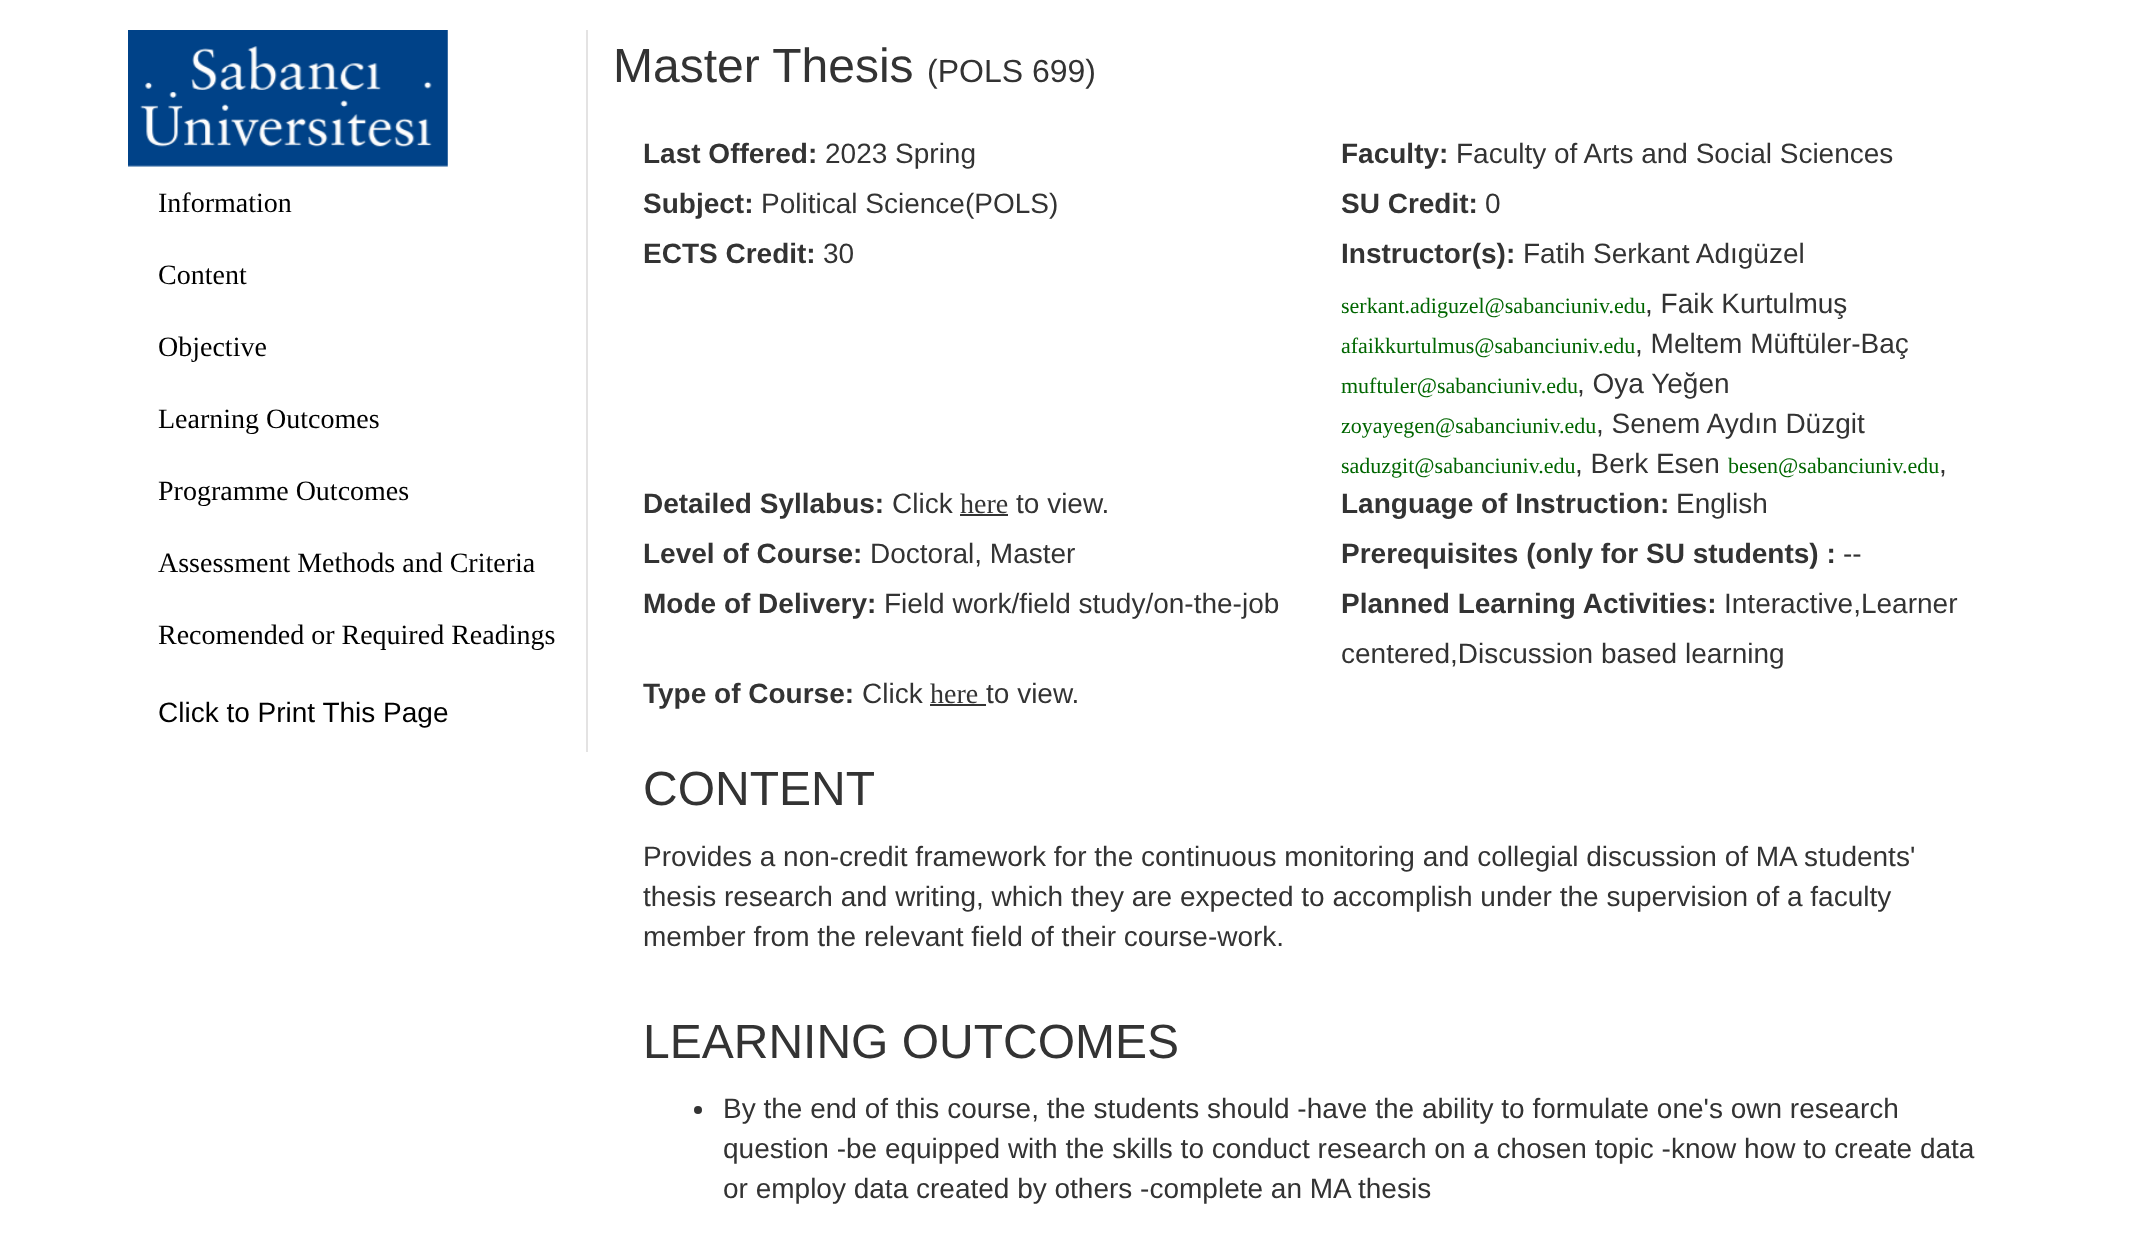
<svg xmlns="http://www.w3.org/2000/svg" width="2136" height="1247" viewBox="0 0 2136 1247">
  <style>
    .t1 { font: 28px Liberation Serif; fill: #000; }
    .t2 { font: 28px Liberation Sans; fill: #000; }
    .t3 { font: 48px Liberation Sans; fill: #333; }
    .t4 { font: 32px Liberation Sans; fill: #333; }
    .t5 { font: bold 28px Liberation Sans; fill: #333; }
    .t6 { font: 28px Liberation Sans; fill: #333; }
    .t7 { font: 22px Liberation Serif; fill: #060; }
    .t8 { font: 28px Liberation Serif; fill: #333; }
  </style>
  <rect width="100%" height="100%" fill="#fff"/>
  <rect x="586" y="30" width="2" height="722" fill="#e4e3e3"/>
  <image x="128" y="30" width="320" height="137" href="images/1.png"/>
  <text x="158" y="212" class="t1">Information</text>
  <text x="158" y="284" class="t1">Content</text>
  <text x="158" y="356" class="t1">Objective</text>
  <text x="158" y="428" class="t1">Learning Outcomes</text>
  <text x="158" y="500" class="t1">Programme Outcomes</text>
  <text x="158" y="572" class="t1">Assessment Methods and Criteria</text>
  <text x="158" y="644" class="t1">Recomended or Required Readings</text>
  <text x="158" y="722" class="t2">Click to Print This Page</text>
  <text x="613" y="82" class="t3">Master Thesis</text>
  <text x="927" y="82" class="t4">(POLS 699)</text>
  <text x="643" y="163" class="t5">Last Offered:</text>
  <text x="825" y="163" class="t6">2023 Spring</text>
  <text x="1341" y="163" class="t5">Faculty:</text>
  <text x="1456" y="163" class="t6">Faculty of Arts and Social Sciences</text>
  <text x="643" y="213" class="t5">Subject:</text>
  <text x="761" y="213" class="t6">Political Science(POLS)</text>
  <text x="1341" y="213" class="t5">SU Credit:</text>
  <text x="1485" y="213" class="t6">0</text>
  <text x="643" y="263" class="t5">ECTS Credit:</text>
  <text x="823" y="263" class="t6">30</text>
  <text x="1341" y="263" class="t5">Instructor(s):</text>
  <text x="1523" y="263" class="t6">Fatih Serkant Adıgüzel</text>
  <text x="1341" y="313" class="t7">serkant.adiguzel@sabanciuniv.edu</text>
  <text x="1645" y="313" class="t6">, Faik Kurtulmuş</text>
  <text x="1341" y="353" class="t7">afaikkurtulmus@sabanciuniv.edu</text>
  <text x="1635" y="353" class="t6">, Meltem Müftüler-Baç</text>
  <text x="1341" y="393" class="t7">muftuler@sabanciuniv.edu</text>
  <text x="1577" y="393" class="t6">, Oya Yeğen</text>
  <text x="1341" y="433" class="t7">zoyayegen@sabanciuniv.edu</text>
  <text x="1596" y="433" class="t6">, Senem Aydın Düzgit</text>
  <text x="1341" y="473" class="t7">saduzgit@sabanciuniv.edu</text>
  <text x="1575" y="473" class="t6">, Berk Esen</text>
  <text x="1728" y="473" class="t7">besen@sabanciuniv.edu</text>
  <text x="1939" y="473" class="t6">,</text>
  <text x="643" y="513" class="t5">Detailed Syllabus:</text>
  <text x="892" y="513" class="t6">Click</text>
  <text x="960" y="513" class="t8">here</text>
  <rect x="960" y="514" width="48" height="2" fill="#333"/>
  <text x="1016" y="513" class="t6">to view.</text>
  <text x="1341" y="513" class="t5">Language of Instruction:</text>
  <text x="1676" y="513" class="t6">English</text>
  <text x="643" y="563" class="t5">Level of Course:</text>
  <text x="870" y="563" class="t6">Doctoral, Master</text>
  <text x="1341" y="563" class="t5">Prerequisites (only for SU students) :</text>
  <text x="1843" y="563" class="t6">--</text>
  <text x="643" y="613" class="t5">Mode of Delivery:</text>
  <text x="884" y="613" class="t6">Field work/field study/on-the-job</text>
  <text x="1341" y="613" class="t5">Planned Learning Activities:</text>
  <text x="1724" y="613" class="t6">Interactive,Learner</text>
  <text x="1341" y="663" class="t6">centered,Discussion based learning</text>
  <text x="643" y="703" class="t5">Type of Course:</text>
  <text x="862" y="703" class="t6">Click</text>
  <text x="930" y="703" class="t8">here</text>
  <rect x="930" y="704" width="56" height="2" fill="#333"/>
  <text x="986" y="703" class="t6">to view.</text>
  <text x="643" y="805" class="t3">CONTENT</text>
  <text x="643" y="866" class="t6">Provides a non-credit framework for the continuous monitoring and collegial discussion of MA students'</text>
  <text x="643" y="906" class="t6">thesis research and writing, which they are expected to accomplish under the supervision of a faculty</text>
  <text x="643" y="946" class="t6">member from the relevant field of their course-work.</text>
  <text x="643" y="1058" class="t3">LEARNING OUTCOMES</text>
  <circle cx="698" cy="1110" r="4" fill="#333"/>
  <text x="723" y="1118" class="t6">By the end of this course, the students should -have the ability to formulate one's own research</text>
  <text x="723" y="1158" class="t6">question -be equipped with the skills to conduct research on a chosen topic -know how to create data</text>
  <text x="723" y="1198" class="t6">or employ data created by others -complete an MA thesis</text>
</svg>
